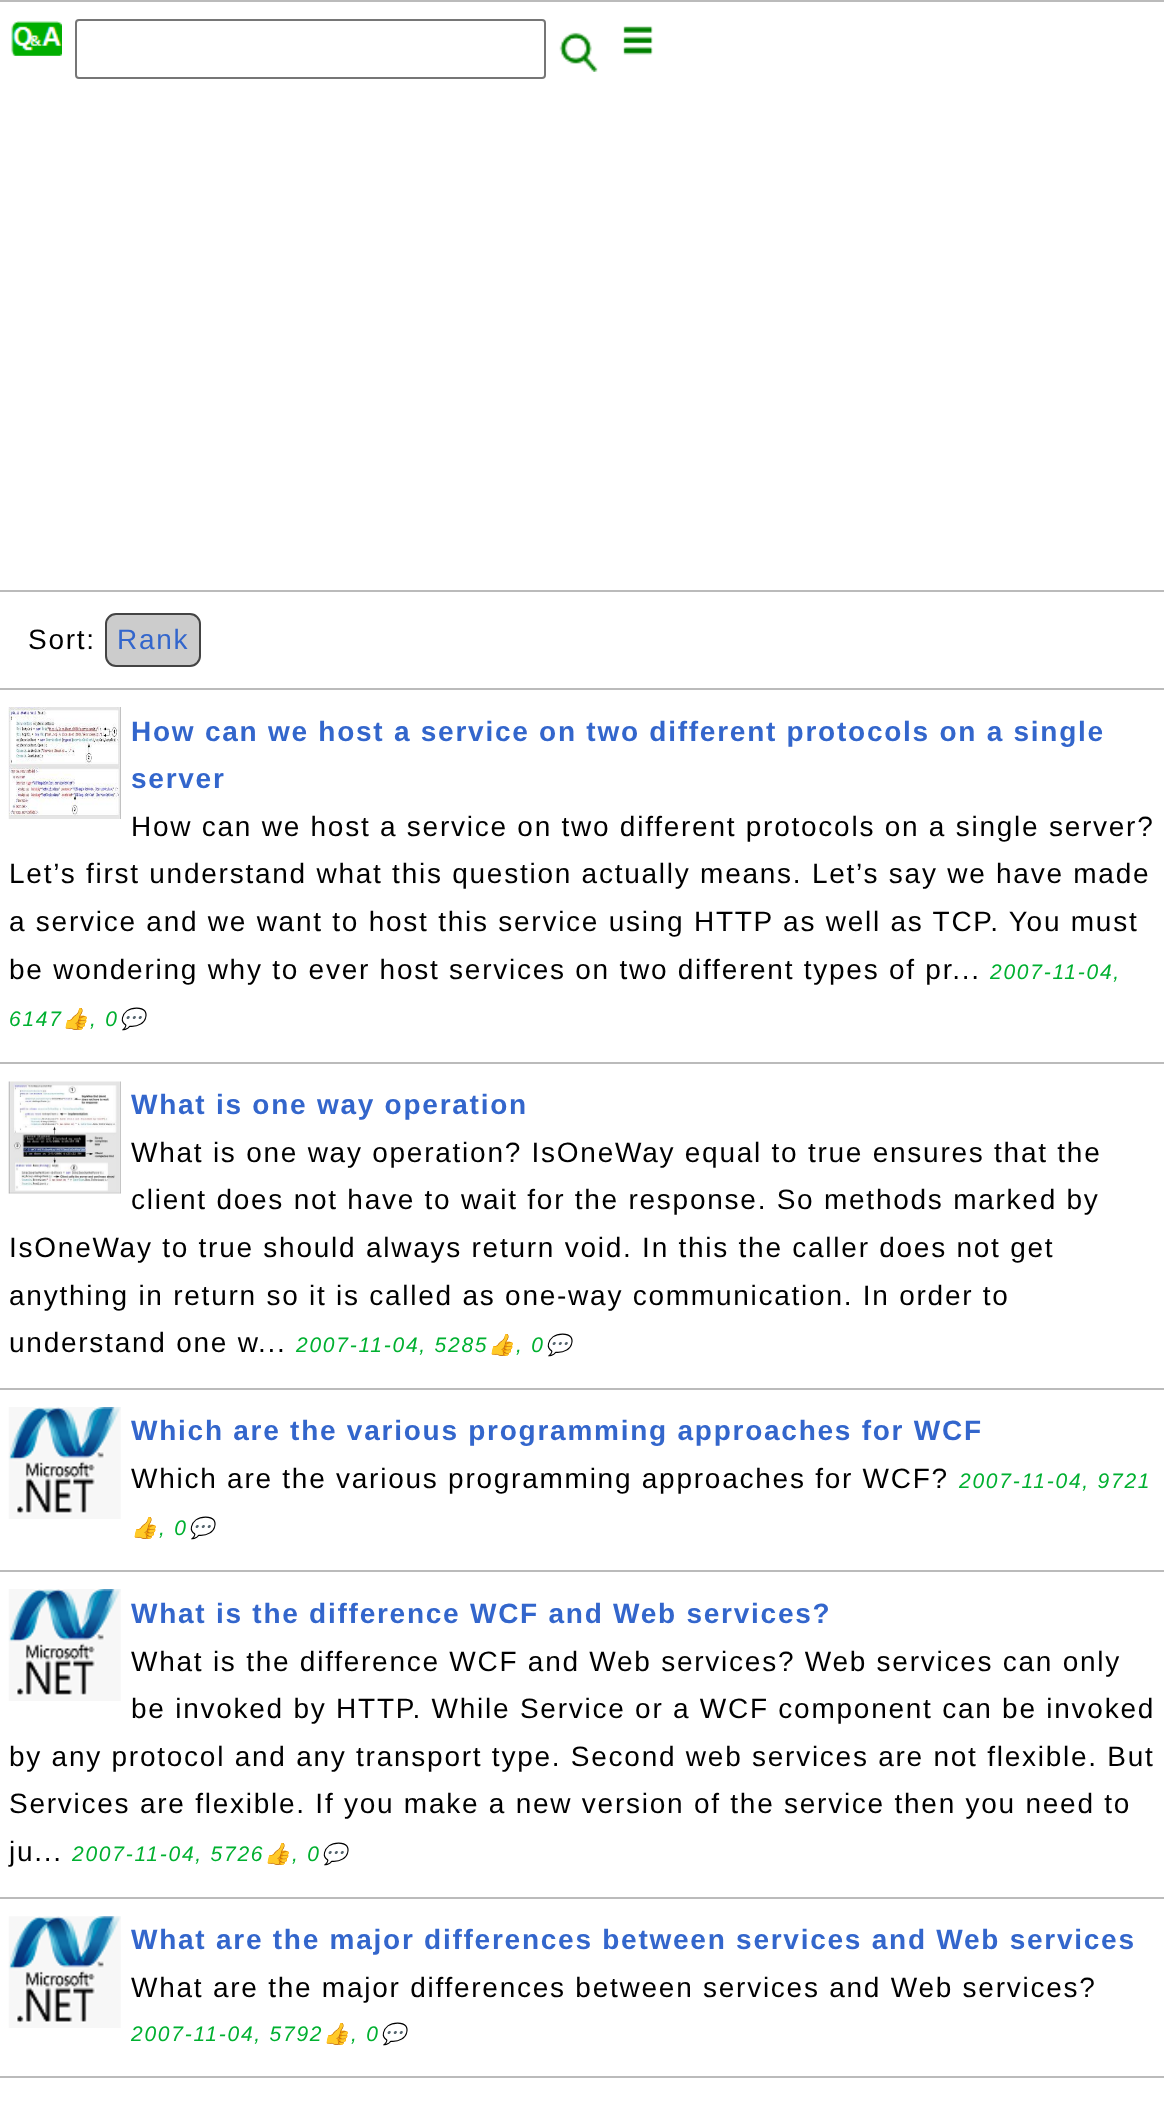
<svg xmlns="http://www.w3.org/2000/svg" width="1164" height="2128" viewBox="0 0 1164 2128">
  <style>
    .t1 { font: 28px Liberation Sans; letter-spacing: 1.75px; fill: #000; }
    .t2 { font: 28px Liberation Sans; letter-spacing: 1.75px; fill: #36c; }
    .t3 { font: bold 28px Liberation Sans; letter-spacing: 1.75px; fill: #36c; }
    .t4 { font: italic 21px Liberation Sans; letter-spacing: 1.75px; fill: #00b030; }
    .t5 { font: italic 21px Noto Color Emoji; letter-spacing: 1.75px; fill: #00b030; }
  </style>
  <rect width="100%" height="100%" fill="#fff"/>
  <rect x="0" y="0" width="1164" height="2" fill="#bbb"/>
  <image x="11" y="21" width="51" height="35" href="images/1.png"/>
  <rect x="76" y="20" width="469" height="58" rx="3" fill="none" stroke="#767676" stroke-width="2"/>
  <image x="559" y="32" width="39" height="40" href="images/2.png"/>
  <image x="623" y="26" width="30" height="29" href="images/3.png"/>
  <rect x="0" y="590" width="1164" height="2" fill="#bbb"/>
  <text x="28" y="649" class="t1">Sort:</text>
  <rect x="106" y="614" width="94" height="52" rx="10" fill="#ccc" stroke="#444" stroke-width="2"/>
  <text x="117" y="649" class="t2">Rank</text>
  <rect x="0" y="688" width="1164" height="2" fill="#bbb"/>
  <image x="8" y="707" width="113" height="112" href="images/4.png"/>
  <text x="131" y="741" class="t3">How can we host a service on two different protocols on a single</text>
  <text x="131" y="788" class="t3">server</text>
  <text x="131" y="836" class="t1">How can we host a service on two different protocols on a single server?</text>
  <text x="9" y="883" class="t1">Let’s first understand what this question actually means. Let’s say we have made</text>
  <text x="9" y="931" class="t1">a service and we want to host this service using HTTP as well as TCP. You must</text>
  <text x="9" y="979" class="t1">be wondering why to ever host services on two different types of pr...</text>
  <text x="990" y="979" class="t4">2007-11-04,</text>
  <text x="9" y="1026" class="t4">6147</text>
  <text x="62" y="1026" class="t5">👍</text>
  <text x="90" y="1026" class="t4">, 0</text>
  <text x="119" y="1026" class="t5">💬</text>
  <rect x="0" y="1062" width="1164" height="2" fill="#bbb"/>
  <image x="8" y="1081" width="113" height="113" href="images/5.png"/>
  <text x="131" y="1114" class="t3">What is one way operation</text>
  <text x="131" y="1162" class="t1">What is one way operation? IsOneWay equal to true ensures that the</text>
  <text x="131" y="1209" class="t1">client does not have to wait for the response. So methods marked by</text>
  <text x="9" y="1257" class="t1">IsOneWay to true should always return void. In this the caller does not get</text>
  <text x="9" y="1305" class="t1">anything in return so it is called as one-way communication. In order to</text>
  <text x="9" y="1352" class="t1">understand one w...</text>
  <text x="296" y="1352" class="t4">2007-11-04, 5285</text>
  <text x="488" y="1352" class="t5">👍</text>
  <text x="516" y="1352" class="t4">, 0</text>
  <text x="545" y="1352" class="t5">💬</text>
  <rect x="0" y="1388" width="1164" height="2" fill="#bbb"/>
  <image x="8" y="1407" width="113" height="112" href="images/6.png"/>
  <text x="131" y="1440" class="t3">Which are the various programming approaches for WCF</text>
  <text x="131" y="1488" class="t1">Which are the various programming approaches for WCF?</text>
  <text x="959" y="1488" class="t4">2007-11-04, 9721</text>
  <text x="131" y="1535" class="t5">👍</text>
  <text x="159" y="1535" class="t4">, 0</text>
  <text x="188" y="1535" class="t5">💬</text>
  <rect x="0" y="1570" width="1164" height="2" fill="#bbb"/>
  <image x="8" y="1589" width="113" height="112" href="images/6.png"/>
  <text x="131" y="1623" class="t3">What is the difference WCF and Web services?</text>
  <text x="131" y="1671" class="t1">What is the difference WCF and Web services? Web services can only</text>
  <text x="131" y="1718" class="t1">be invoked by HTTP. While Service or a WCF component can be invoked</text>
  <text x="9" y="1766" class="t1">by any protocol and any transport type. Second web services are not flexible. But</text>
  <text x="9" y="1813" class="t1">Services are flexible. If you make a new version of the service then you need to</text>
  <text x="9" y="1861" class="t1">ju...</text>
  <text x="72" y="1861" class="t4">2007-11-04, 5726</text>
  <text x="264" y="1861" class="t5">👍</text>
  <text x="292" y="1861" class="t4">, 0</text>
  <text x="321" y="1861" class="t5">💬</text>
  <rect x="0" y="1897" width="1164" height="2" fill="#bbb"/>
  <image x="8" y="1916" width="113" height="112" href="images/7.png"/>
  <text x="131" y="1949" class="t3">What are the major differences between services and Web services</text>
  <text x="131" y="1997" class="t1">What are the major differences between services and Web services?</text>
  <text x="131" y="2041" class="t4">2007-11-04, 5792</text>
  <text x="323" y="2041" class="t5">👍</text>
  <text x="351" y="2041" class="t4">, 0</text>
  <text x="380" y="2041" class="t5">💬</text>
  <rect x="0" y="2076" width="1164" height="2" fill="#bbb"/>
</svg>
